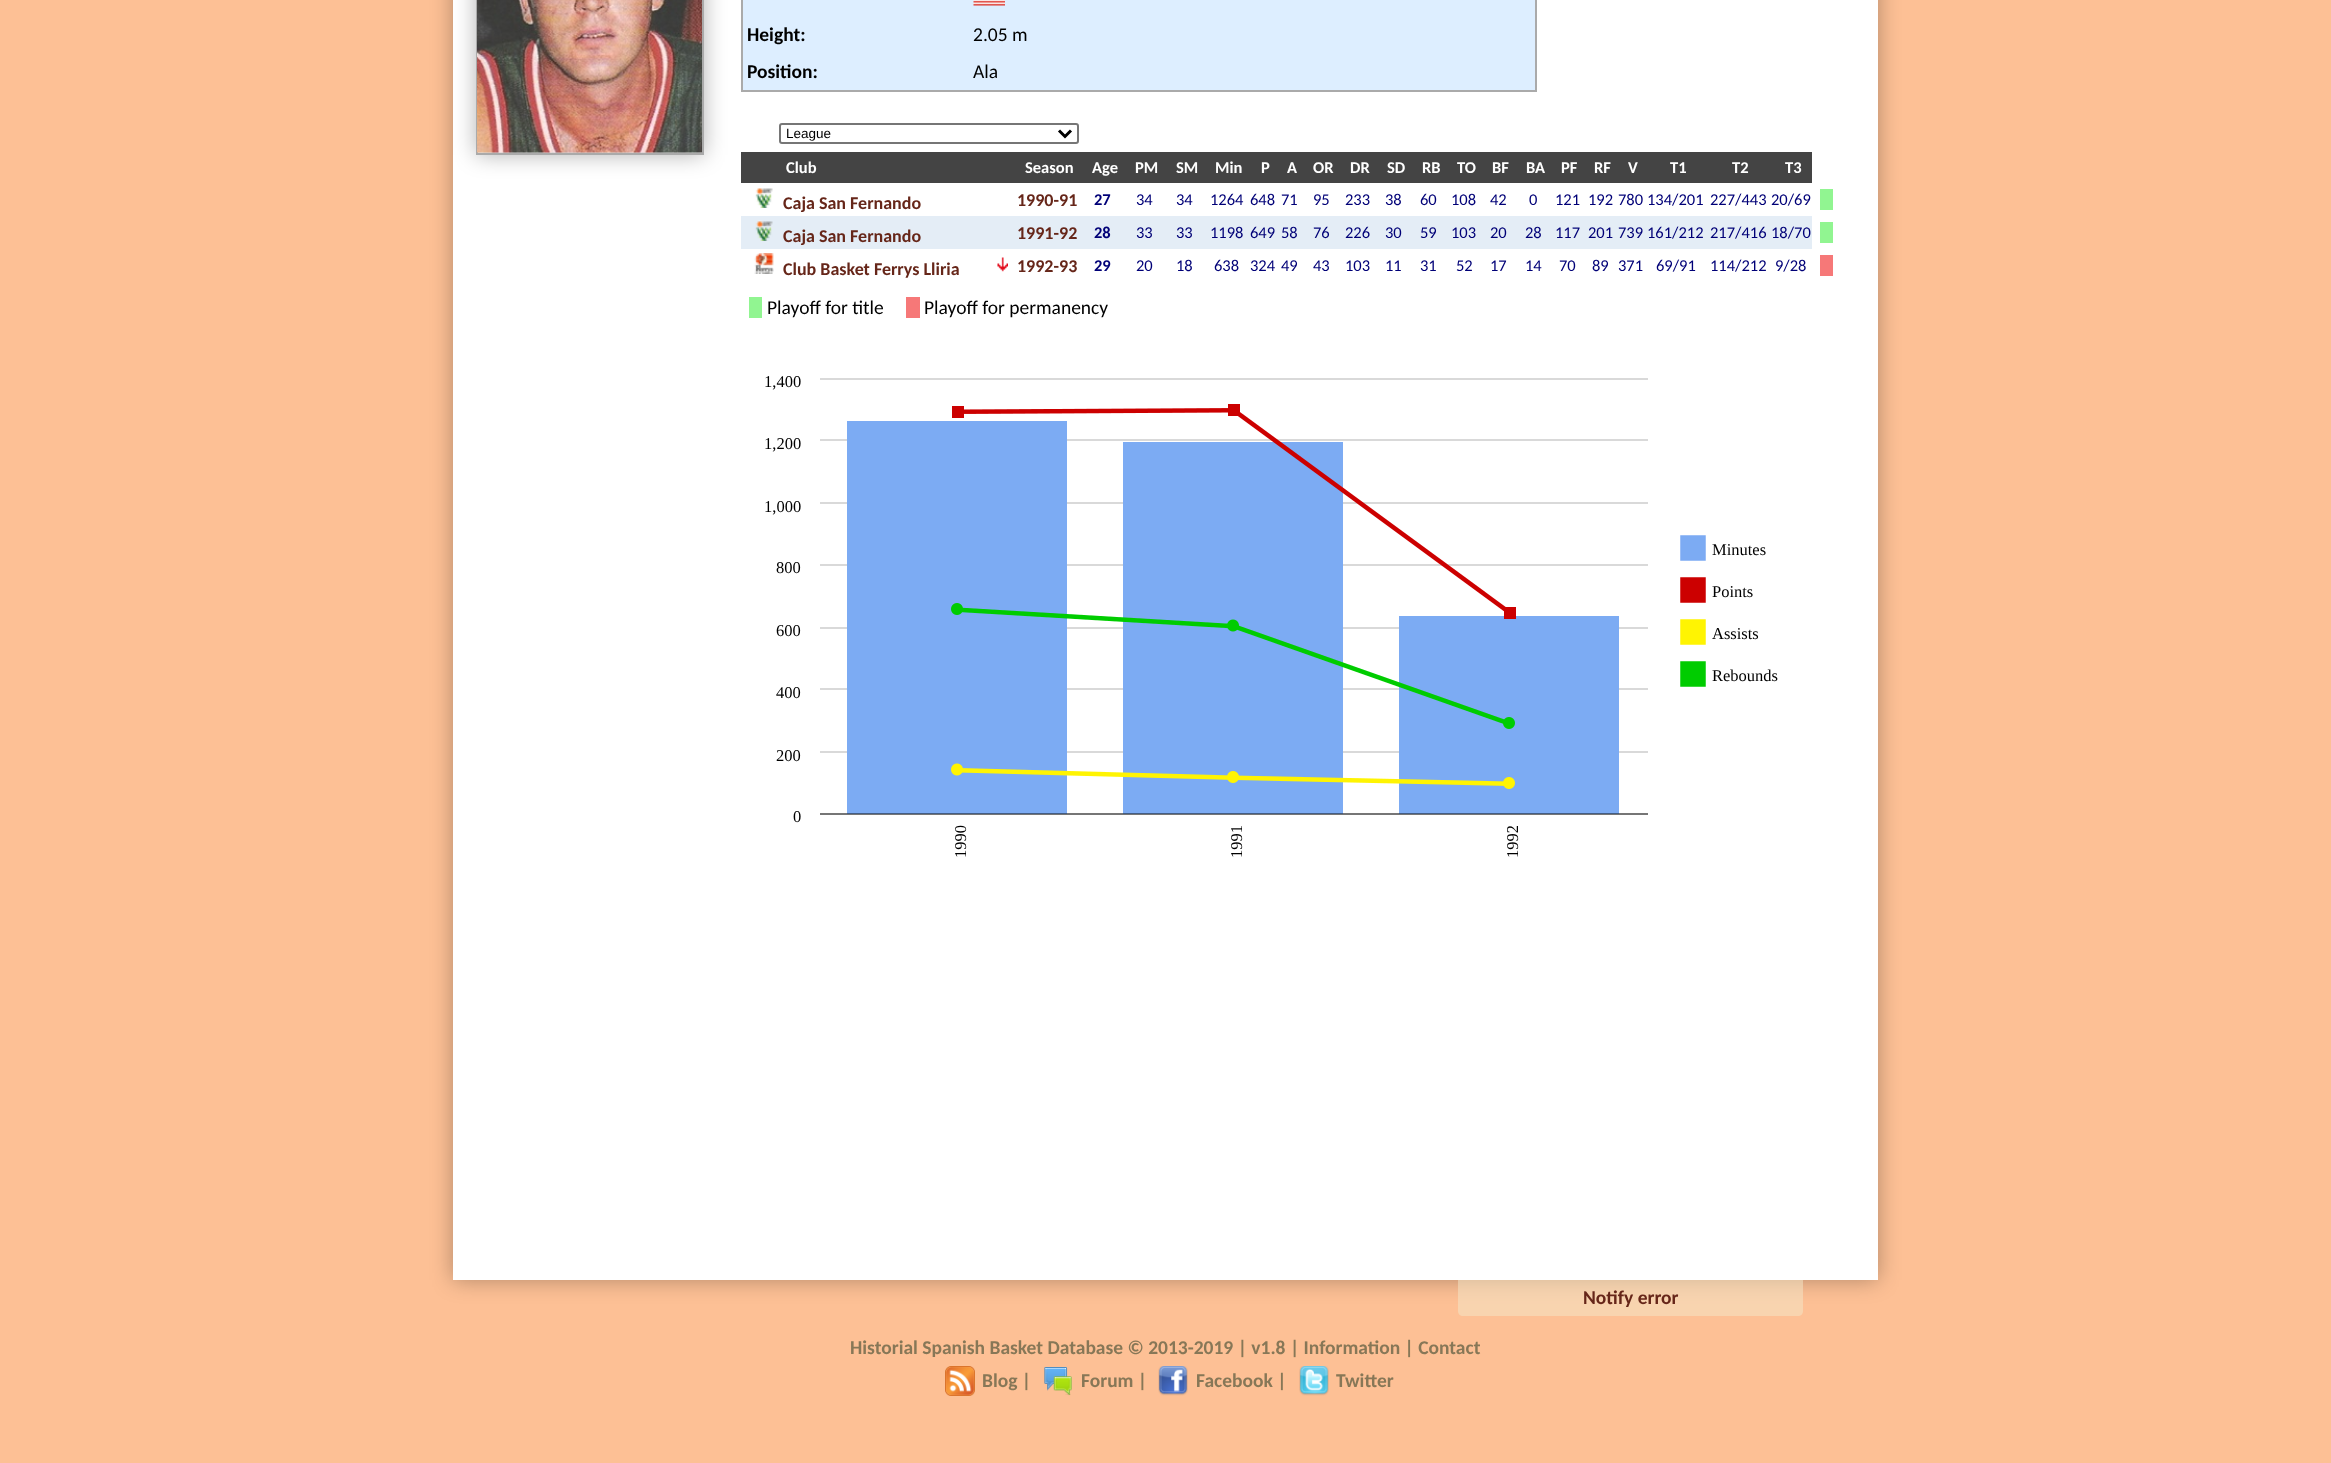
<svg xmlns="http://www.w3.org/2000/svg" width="2331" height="1463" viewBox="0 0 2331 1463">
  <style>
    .t1 { font: bold 19.5px Carlito; fill: #000; }
    .t2 { font: 19.5px Carlito; fill: #000; }
    .t3 { font: 13.5px Liberation Sans; fill: #000; }
    .t4 { font: bold 16.5px Carlito; fill: #fff; }
    .t5 { font: bold 18px Carlito; fill: #662619; }
    .t6 { font: bold 16.5px Carlito; fill: #007; }
    .t7 { font: 16.5px Carlito; fill: #007; }
    .t8 { font: 16.5px Liberation Serif; fill: #000; }
    .t9 { font: bold 19.5px Carlito; fill: #662619; }
    .t10 { font: bold 19.5px Carlito; fill: #877757; }
  </style>
  <rect width="100%" height="100%" fill="#fdc095"/>
  <rect x="453" y="-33" width="1425" height="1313" fill="#0000004d" filter="blur(11px)"/>
  <rect x="453" y="0" width="1425" height="1280" fill="#fff"/>
  <rect x="476" y="-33" width="228" height="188" fill="#0000004d" filter="blur(11px)"/>
  <rect x="477" y="-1" width="226" height="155" fill="none" stroke="#aaa" stroke-width="2"/>
  <image x="477" y="0" width="225" height="153" href="images/1.png"/>
  <rect x="743" y="0" width="792" height="90" fill="#def"/>
  <rect x="1535" y="0" width="2" height="92" fill="#aaa"/>
  <rect x="741" y="90" width="795" height="2" fill="#aaa"/>
  <rect x="741" y="0" width="2" height="92" fill="#aaa"/>
  <image x="973" y="0" width="32" height="6" href="images/2.png"/>
  <text x="747" y="41" class="t1">Height:</text>
  <text x="973" y="41" class="t2">2.05 m</text>
  <text x="747" y="78" class="t1">Position:</text>
  <text x="973" y="78" class="t2">Ala</text>
  <rect x="780" y="124" width="298" height="19" rx="2" fill="none" stroke="#767676" stroke-width="2"/>
  <path d="M1059 130.5L1065 136.5L1071 130.5" fill="none" stroke="#000" stroke-width="3"/>
  <text x="786" y="138" class="t3">League</text>
  <rect x="741" y="152" width="1071" height="31" fill="#444"/>
  <text x="786" y="173" class="t4">Club</text>
  <text x="1025" y="173" class="t4">Season</text>
  <text x="1092" y="173" class="t4">Age</text>
  <text x="1135" y="173" class="t4">PM</text>
  <text x="1176" y="173" class="t4">SM</text>
  <text x="1215" y="173" class="t4">Min</text>
  <text x="1261" y="173" class="t4">P</text>
  <text x="1287" y="173" class="t4">A</text>
  <text x="1313" y="173" class="t4">OR</text>
  <text x="1350" y="173" class="t4">DR</text>
  <text x="1387" y="173" class="t4">SD</text>
  <text x="1422" y="173" class="t4">RB</text>
  <text x="1457" y="173" class="t4">TO</text>
  <text x="1492" y="173" class="t4">BF</text>
  <text x="1526" y="173" class="t4">BA</text>
  <text x="1561" y="173" class="t4">PF</text>
  <text x="1594" y="173" class="t4">RF</text>
  <text x="1628" y="173" class="t4">V</text>
  <text x="1670" y="173" class="t4">T1</text>
  <text x="1732" y="173" class="t4">T2</text>
  <text x="1785" y="173" class="t4">T3</text>
  <image x="755" y="188" width="18" height="20" href="images/3.png"/>
  <text x="783" y="209" class="t5">Caja San Fernando</text>
  <text x="1017" y="206" class="t5">1990-91</text>
  <text x="1094" y="205" class="t6">27</text>
  <text x="1136" y="205" class="t7">34</text>
  <text x="1176" y="205" class="t7">34</text>
  <text x="1210" y="205" class="t7">1264</text>
  <text x="1250" y="205" class="t7">648</text>
  <text x="1281" y="205" class="t7">71</text>
  <text x="1313" y="205" class="t7">95</text>
  <text x="1345" y="205" class="t7">233</text>
  <text x="1385" y="205" class="t7">38</text>
  <text x="1420" y="205" class="t7">60</text>
  <text x="1451" y="205" class="t7">108</text>
  <text x="1490" y="205" class="t7">42</text>
  <text x="1529" y="205" class="t7">0</text>
  <text x="1555" y="205" class="t7">121</text>
  <text x="1588" y="205" class="t7">192</text>
  <text x="1618" y="205" class="t7">780</text>
  <text x="1647" y="205" class="t7">134/201</text>
  <text x="1710" y="205" class="t7">227/443</text>
  <text x="1771" y="205" class="t7">20/69</text>
  <rect x="1820" y="189" width="13" height="21" fill="#91f591"/>
  <rect x="741" y="216" width="1071" height="33" fill="#e4edf6"/>
  <image x="755" y="220" width="18" height="21" href="images/4.png"/>
  <text x="783" y="242" class="t5">Caja San Fernando</text>
  <text x="1017" y="239" class="t5">1991-92</text>
  <text x="1094" y="238" class="t6">28</text>
  <text x="1136" y="238" class="t7">33</text>
  <text x="1176" y="238" class="t7">33</text>
  <text x="1210" y="238" class="t7">1198</text>
  <text x="1250" y="238" class="t7">649</text>
  <text x="1281" y="238" class="t7">58</text>
  <text x="1313" y="238" class="t7">76</text>
  <text x="1345" y="238" class="t7">226</text>
  <text x="1385" y="238" class="t7">30</text>
  <text x="1420" y="238" class="t7">59</text>
  <text x="1451" y="238" class="t7">103</text>
  <text x="1490" y="238" class="t7">20</text>
  <text x="1525" y="238" class="t7">28</text>
  <text x="1555" y="238" class="t7">117</text>
  <text x="1588" y="238" class="t7">201</text>
  <text x="1618" y="238" class="t7">739</text>
  <text x="1647" y="238" class="t7">161/212</text>
  <text x="1710" y="238" class="t7">217/416</text>
  <text x="1771" y="238" class="t7">18/70</text>
  <rect x="1820" y="222" width="13" height="21" fill="#91f591"/>
  <image x="754" y="253" width="20" height="21" href="images/5.png"/>
  <text x="783" y="275" class="t5">Club Basket Ferrys Lliria</text>
  <image x="997" y="257" width="11" height="15" href="images/6.png"/>
  <text x="1017" y="272" class="t5">1992-93</text>
  <text x="1094" y="271" class="t6">29</text>
  <text x="1136" y="271" class="t7">20</text>
  <text x="1176" y="271" class="t7">18</text>
  <text x="1214" y="271" class="t7">638</text>
  <text x="1250" y="271" class="t7">324</text>
  <text x="1281" y="271" class="t7">49</text>
  <text x="1313" y="271" class="t7">43</text>
  <text x="1345" y="271" class="t7">103</text>
  <text x="1385" y="271" class="t7">11</text>
  <text x="1420" y="271" class="t7">31</text>
  <text x="1456" y="271" class="t7">52</text>
  <text x="1490" y="271" class="t7">17</text>
  <text x="1525" y="271" class="t7">14</text>
  <text x="1559" y="271" class="t7">70</text>
  <text x="1592" y="271" class="t7">89</text>
  <text x="1618" y="271" class="t7">371</text>
  <text x="1656" y="271" class="t7">69/91</text>
  <text x="1710" y="271" class="t7">114/212</text>
  <text x="1775" y="271" class="t7">9/28</text>
  <rect x="1820" y="255" width="13" height="21" fill="#f67878"/>
  <rect x="749" y="297" width="13" height="21" fill="#91f591"/>
  <text x="767" y="314" class="t2">Playoff for title</text>
  <rect x="906" y="297" width="14" height="21" fill="#f67878"/>
  <text x="924" y="314" class="t2">Playoff for permanency</text>
  <image x="820" y="378" width="828" height="437" href="images/7.png"/>
  <text x="764" y="387" class="t8">1,400</text>
  <text x="764" y="449" class="t8">1,200</text>
  <text x="764" y="512" class="t8">1,000</text>
  <text x="776" y="573" class="t8">800</text>
  <text x="776" y="636" class="t8">600</text>
  <text x="776" y="698" class="t8">400</text>
  <text x="776" y="761" class="t8">200</text>
  <text x="793" y="822" class="t8">0</text>
  <text x="966" y="858" transform="rotate(-90 966 858)" class="t8">1990</text>
  <text x="1242" y="858" transform="rotate(-90 1242 858)" class="t8">1991</text>
  <text x="1518" y="858" transform="rotate(-90 1518 858)" class="t8">1992</text>
  <rect x="1681" y="536" width="24" height="24" fill="#7cabf3"/>
  <path d="M1681 560H1705V536H1681Z" fill="none" stroke="#7cabf3" stroke-width="1.5"/>
  <rect x="1681" y="578" width="24" height="24" fill="#c00"/>
  <path d="M1681 602H1705V578H1681Z" fill="none" stroke="#c00" stroke-width="1.5"/>
  <rect x="1681" y="620" width="24" height="24" fill="#fff402"/>
  <path d="M1681 644H1705V620H1681Z" fill="none" stroke="#fff402" stroke-width="1.5"/>
  <rect x="1681" y="662" width="24" height="24" fill="#0c0"/>
  <path d="M1681 686H1705V662H1681Z" fill="none" stroke="#0c0" stroke-width="1.5"/>
  <text x="1712" y="555" class="t8">Minutes</text>
  <text x="1712" y="597" class="t8">Points</text>
  <text x="1712" y="639" class="t8">Assists</text>
  <text x="1712" y="681" class="t8">Rebounds</text>
  <path d="M1458 1280H1803V1311C1803 1314 1801 1316 1798 1316H1463C1460 1316 1458 1314 1458 1311Z" fill="#f4e8ca80"/>
  <text x="1583" y="1304" class="t9">Notify error</text>
  <text x="850" y="1354" class="t10">Historial Spanish Basket Database © 2013-2019 | v1.8 | Information | Contact</text>
  <image x="945" y="1366" width="30" height="30" href="images/8.png"/>
  <text x="982" y="1387" class="t10">Blog |</text>
  <image x="1044" y="1367" width="28" height="29" href="images/9.png"/>
  <text x="1081" y="1387" class="t10">Forum |</text>
  <image x="1158" y="1366" width="30" height="30" href="images/10.png"/>
  <text x="1196" y="1387" class="t10">Facebook |</text>
  <image x="1299" y="1366" width="30" height="30" href="images/11.png"/>
  <text x="1336" y="1387" class="t10">Twitter</text>
</svg>
